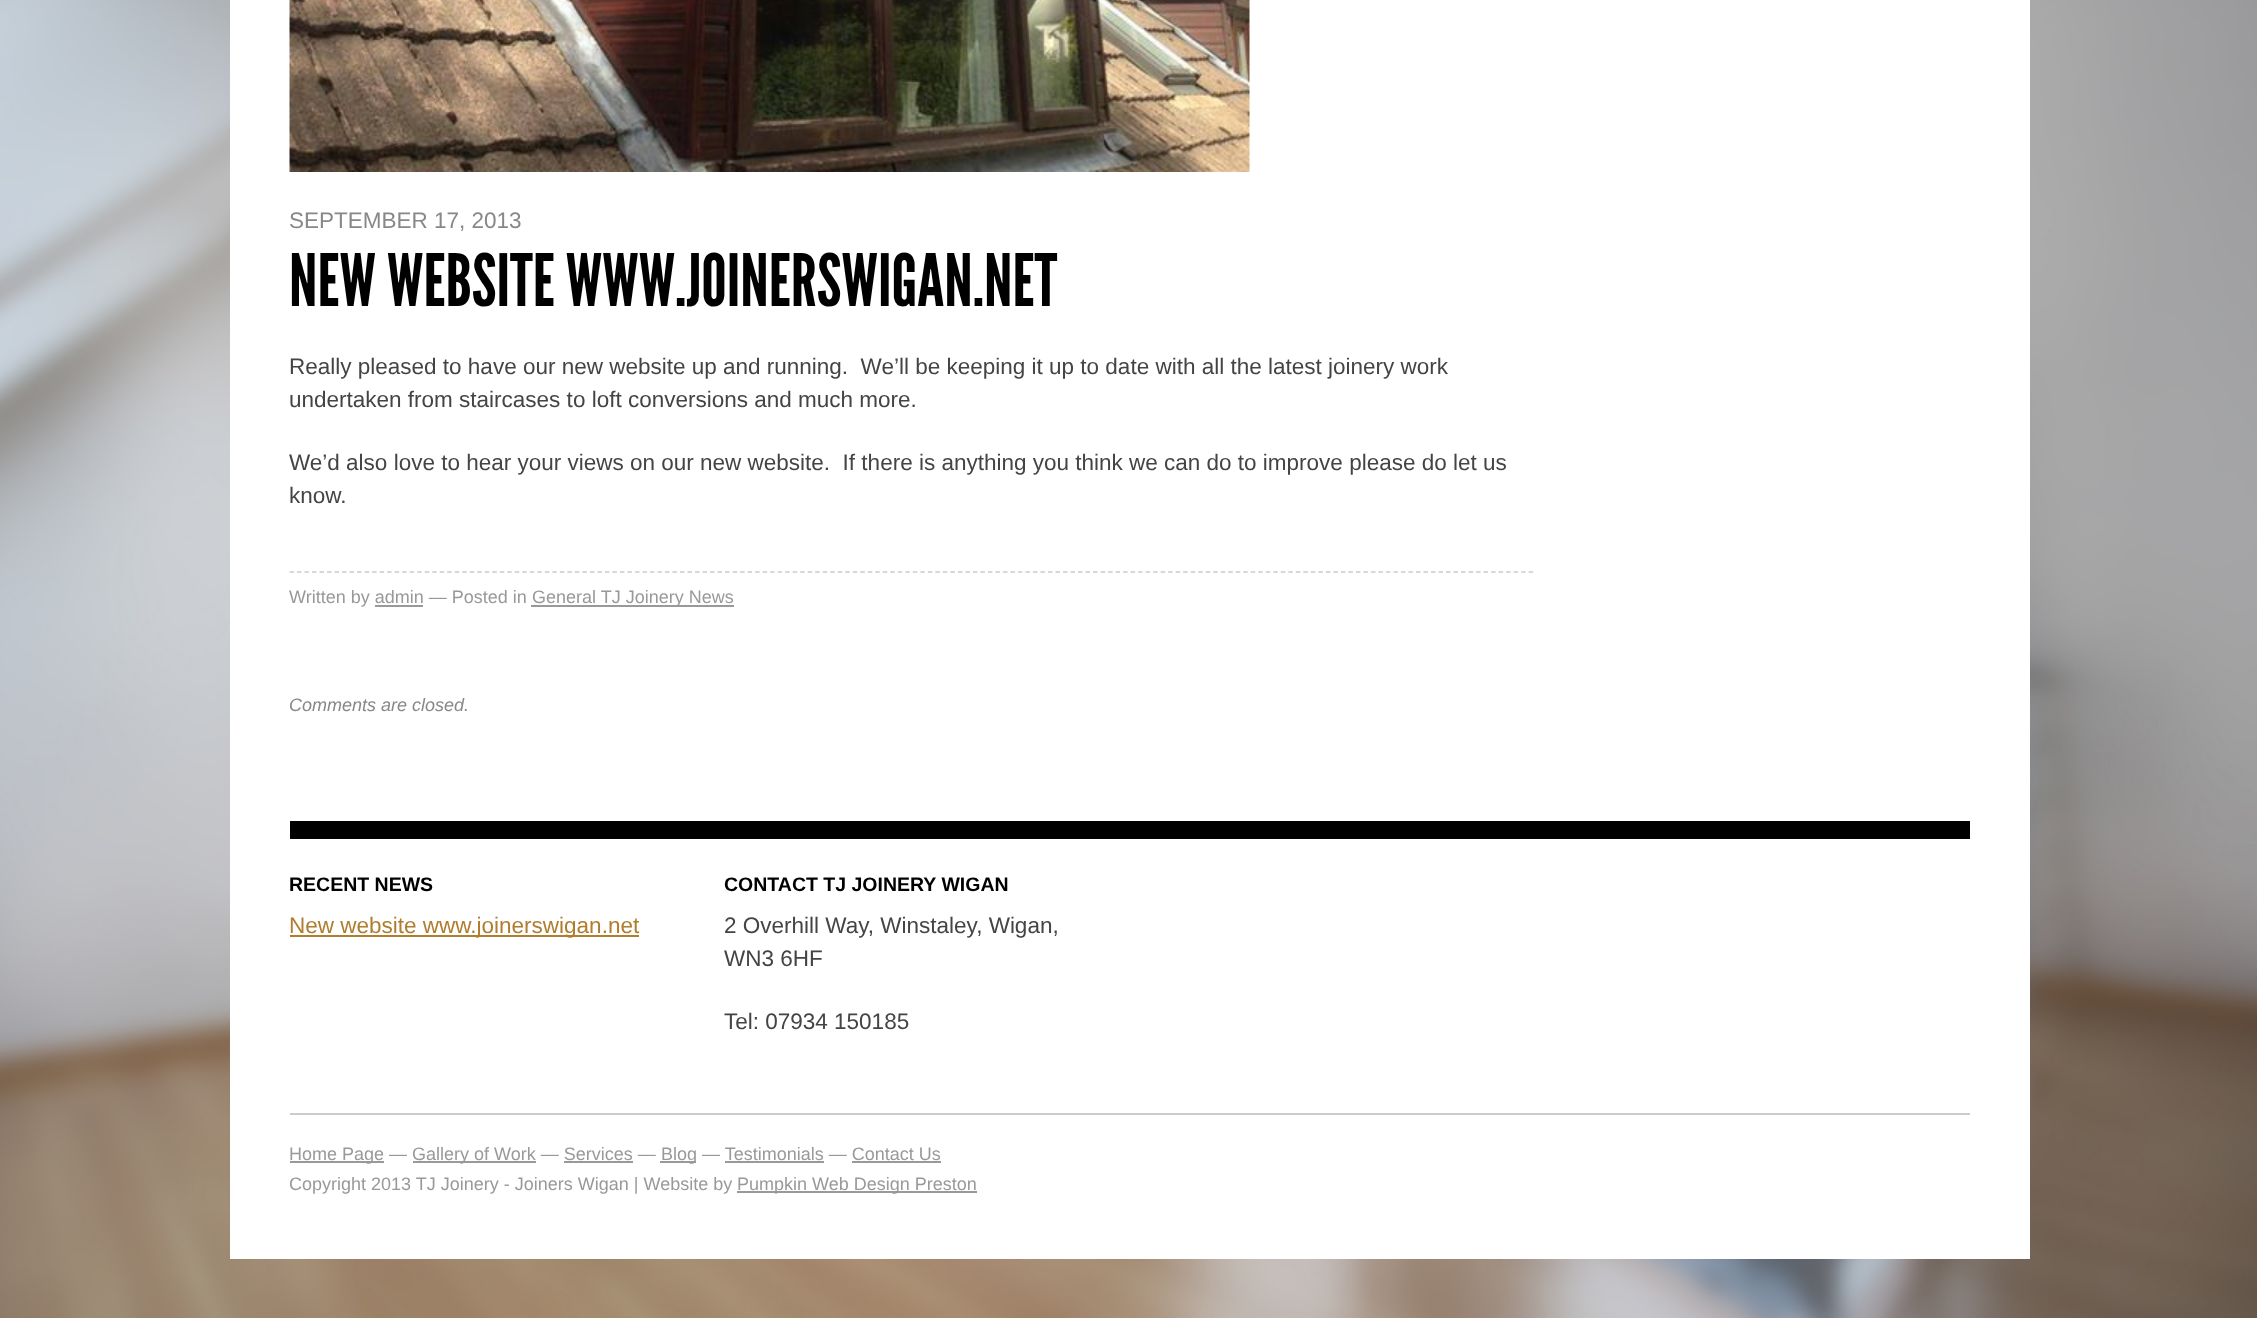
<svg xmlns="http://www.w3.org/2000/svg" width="2257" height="1318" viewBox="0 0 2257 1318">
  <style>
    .t1 { font: 22.5px Liberation Sans; fill: #888; }
    .t2 { font: 72px League Gothic; fill: #000; }
    .t3 { font: 22.5px Liberation Sans; fill: #444; }
    .t4 { font: 18px Liberation Sans; fill: #999; }
    .t5 { font: italic 18px Liberation Sans; fill: #888; }
    .t6 { font: bold 19.5px Liberation Sans; fill: #000; }
    .t7 { font: 22.5px Liberation Sans; fill: #b07c2e; }
  </style>
  <rect width="100%" height="100%" fill="#fff"/>
  <image x="0" y="0" width="2257" height="1318" href="images/1.png"/>
  <rect x="230" y="0" width="1800" height="1259" fill="#fff"/>
  <image x="289" y="0" width="961" height="172" href="images/2.png"/>
  <text x="289" y="228" class="t1">SEPTEMBER 17, 2013</text>
  <text x="289" y="306" class="t2">NEW WEBSITE WWW.JOINERSWIGAN.NET</text>
  <text x="289" y="374" class="t3" xml:space="preserve">Really pleased to have our new website up and running.  We’ll be keeping it up to date with all the latest joinery work</text>
  <text x="289" y="407" class="t3">undertaken from staircases to loft conversions and much more.</text>
  <text x="289" y="470" class="t3" xml:space="preserve">We’d also love to hear your views on our new website.  If there is anything you think we can do to improve please do let us</text>
  <text x="289" y="503" class="t3">know.</text>
  <path d="M289.5 572H1534.5" fill="none" stroke="#ccc" stroke-width="1.5" stroke-dasharray="4.5 3.01"/>
  <text x="289" y="603" class="t4">Written by admin — Posted in</text>
  <rect x="375" y="605" width="48" height="2" fill="#999"/>
  <rect x="531" y="605" width="203" height="2" fill="#999"/>
  <text x="532" y="603" class="t4">General TJ Joinery News</text>
  <text x="289" y="711" class="t5">Comments are closed.</text>
  <rect x="290" y="821" width="1680" height="18" fill="#000"/>
  <rect x="290" y="1113" width="1680" height="2" fill="#ccc"/>
  <text x="289" y="891" class="t6">RECENT NEWS</text>
  <rect x="290" y="935" width="349" height="2" fill="#b07c2e"/>
  <text x="289" y="933" class="t7">New website www.joinerswigan.net</text>
  <text x="724" y="891" class="t6">CONTACT TJ JOINERY WIGAN</text>
  <text x="724" y="933" class="t3">2 Overhill Way, Winstaley, Wigan,</text>
  <text x="724" y="966" class="t3">WN3 6HF</text>
  <text x="724" y="1029" class="t3">Tel: 07934 150185</text>
  <rect x="290" y="1161" width="94" height="2" fill="#999"/>
  <text x="289" y="1160" class="t4">Home Page —</text>
  <rect x="413" y="1161" width="123" height="2" fill="#999"/>
  <text x="412" y="1160" class="t4">Gallery of Work — Services —</text>
  <rect x="660" y="1161" width="36" height="2" fill="#999"/>
  <text x="661" y="1160" class="t4">Blog — Testimonials — Contact Us</text>
  <rect x="564" y="1161" width="69" height="2" fill="#999"/>
  <rect x="725" y="1161" width="99" height="2" fill="#999"/>
  <rect x="852" y="1161" width="89" height="2" fill="#999"/>
  <text x="289" y="1190" class="t4">Copyright 2013 TJ Joinery - Joiners Wigan | Website by</text>
  <rect x="737" y="1191" width="240" height="2" fill="#999"/>
  <text x="737" y="1190" class="t4">Pumpkin Web Design Preston</text>
</svg>
